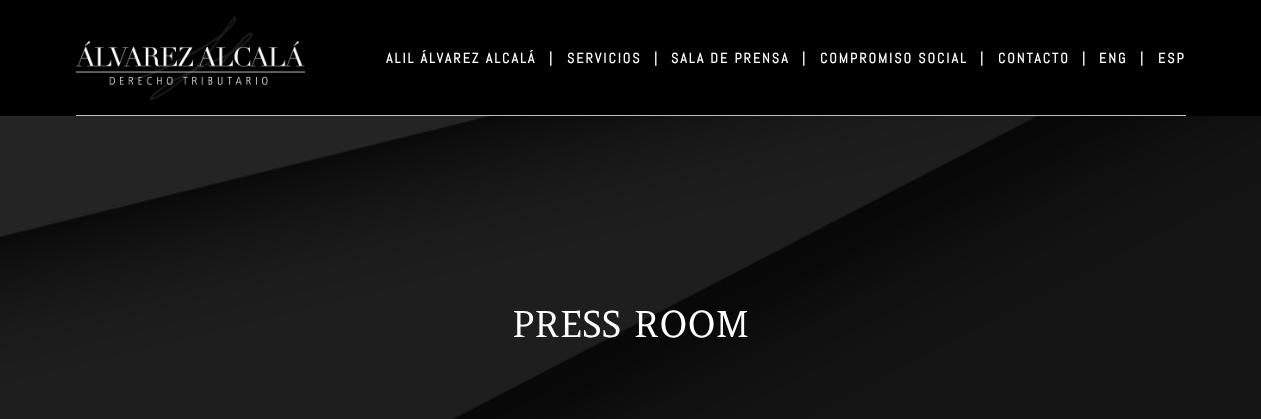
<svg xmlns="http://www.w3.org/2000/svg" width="1261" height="419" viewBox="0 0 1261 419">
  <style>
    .t1 { font: bold 14px Abel; letter-spacing: 2px; fill: #fff; }
    .t2 { font: 36px Amethysta; fill: #fff; }
  </style>
  <rect width="100%" height="100%" fill="#fff"/>
  <rect x="0" y="0" width="1261" height="116" fill="#000"/>
  <image x="76" y="16" width="229" height="84" href="images/1.png"/>
  <text x="386" y="63" class="t1">ALIL ÁLVAREZ ALCALÁ</text>
  <text x="549" y="63" class="t1">|</text>
  <text x="567" y="63" class="t1">SERVICIOS</text>
  <text x="654" y="63" class="t1">|</text>
  <text x="671" y="63" class="t1">SALA DE PRENSA</text>
  <text x="802" y="63" class="t1">|</text>
  <text x="820" y="63" class="t1">COMPROMISO SOCIAL</text>
  <text x="980" y="63" class="t1">|</text>
  <text x="998" y="63" class="t1">CONTACTO</text>
  <text x="1082" y="63" class="t1">|</text>
  <text x="1099" y="63" class="t1">ENG</text>
  <text x="1140" y="63" class="t1">|</text>
  <text x="1158" y="63" class="t1">ESP</text>
  <rect x="76" y="115" width="1110" height="1" fill="#bfbfbf"/>
  <image x="0" y="116" width="1261" height="303" href="images/2.png"/>
  <text x="512" y="337" class="t2">PRESS ROOM</text>
</svg>
